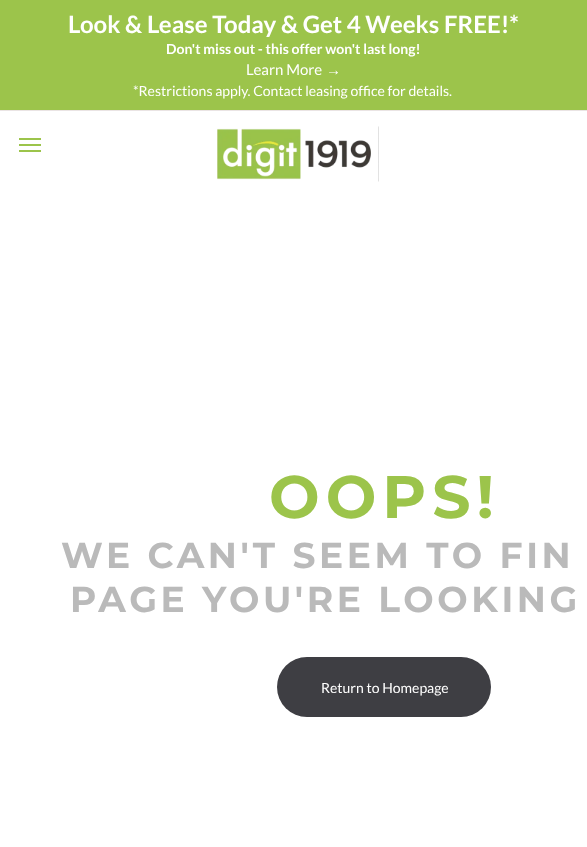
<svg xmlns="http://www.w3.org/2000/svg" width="587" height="847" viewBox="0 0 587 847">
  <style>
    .t1 { font: bold 24px Lato; fill: #fff; }
    .t2 { font: bold 14px Lato; fill: #fff; }
    .t3 { font: 15px Lato; fill: #fff; }
    .t4 { font: 15px Liberation Serif; fill: #fff; }
    .t5 { font: 14px Lato; fill: #fff; }
    .t6 { font: bold 60px Montserrat; letter-spacing: 6px; fill: #9cc44b; }
    .t7 { font: bold 36px Montserrat; letter-spacing: 3.6px; fill: #bababa; }
  </style>
  <rect width="100%" height="100%" fill="#fff"/>
  <rect x="0" y="0" width="587" height="110" fill="#9cc44b"/>
  <rect x="0" y="110" width="587" height="1" fill="#eae4e4"/>
  <text x="68" y="33" class="t1">Look &amp; Lease Today &amp; Get 4 Weeks FREE!*</text>
  <text x="166" y="54" class="t2">Don't miss out - this offer won't last long!</text>
  <text x="246" y="75" class="t3">Learn More</text>
  <text x="326" y="75" class="t4">→</text>
  <text x="133" y="96" class="t5">*Restrictions apply. Contact leasing office for details.</text>
  <text x="269" y="518" class="t6">OOPS!</text>
  <text x="61" y="568" class="t7">WE CAN'T SEEM TO FIN</text>
  <text x="70" y="612" class="t7">PAGE YOU'RE LOOKING</text>
  <rect x="277" y="657" width="214" height="60" rx="30" fill="#3e3e43"/>
  <text x="321" y="693" class="t5">Return to Homepage</text>
  <rect x="19" y="138" width="22" height="2" fill="#9cc44b"/>
  <rect x="19" y="144" width="22" height="2" fill="#9cc44b"/>
  <rect x="19" y="150" width="22" height="2" fill="#9cc44b"/>
  <image x="217" y="126" width="162" height="56" href="images/1.png"/>
</svg>
